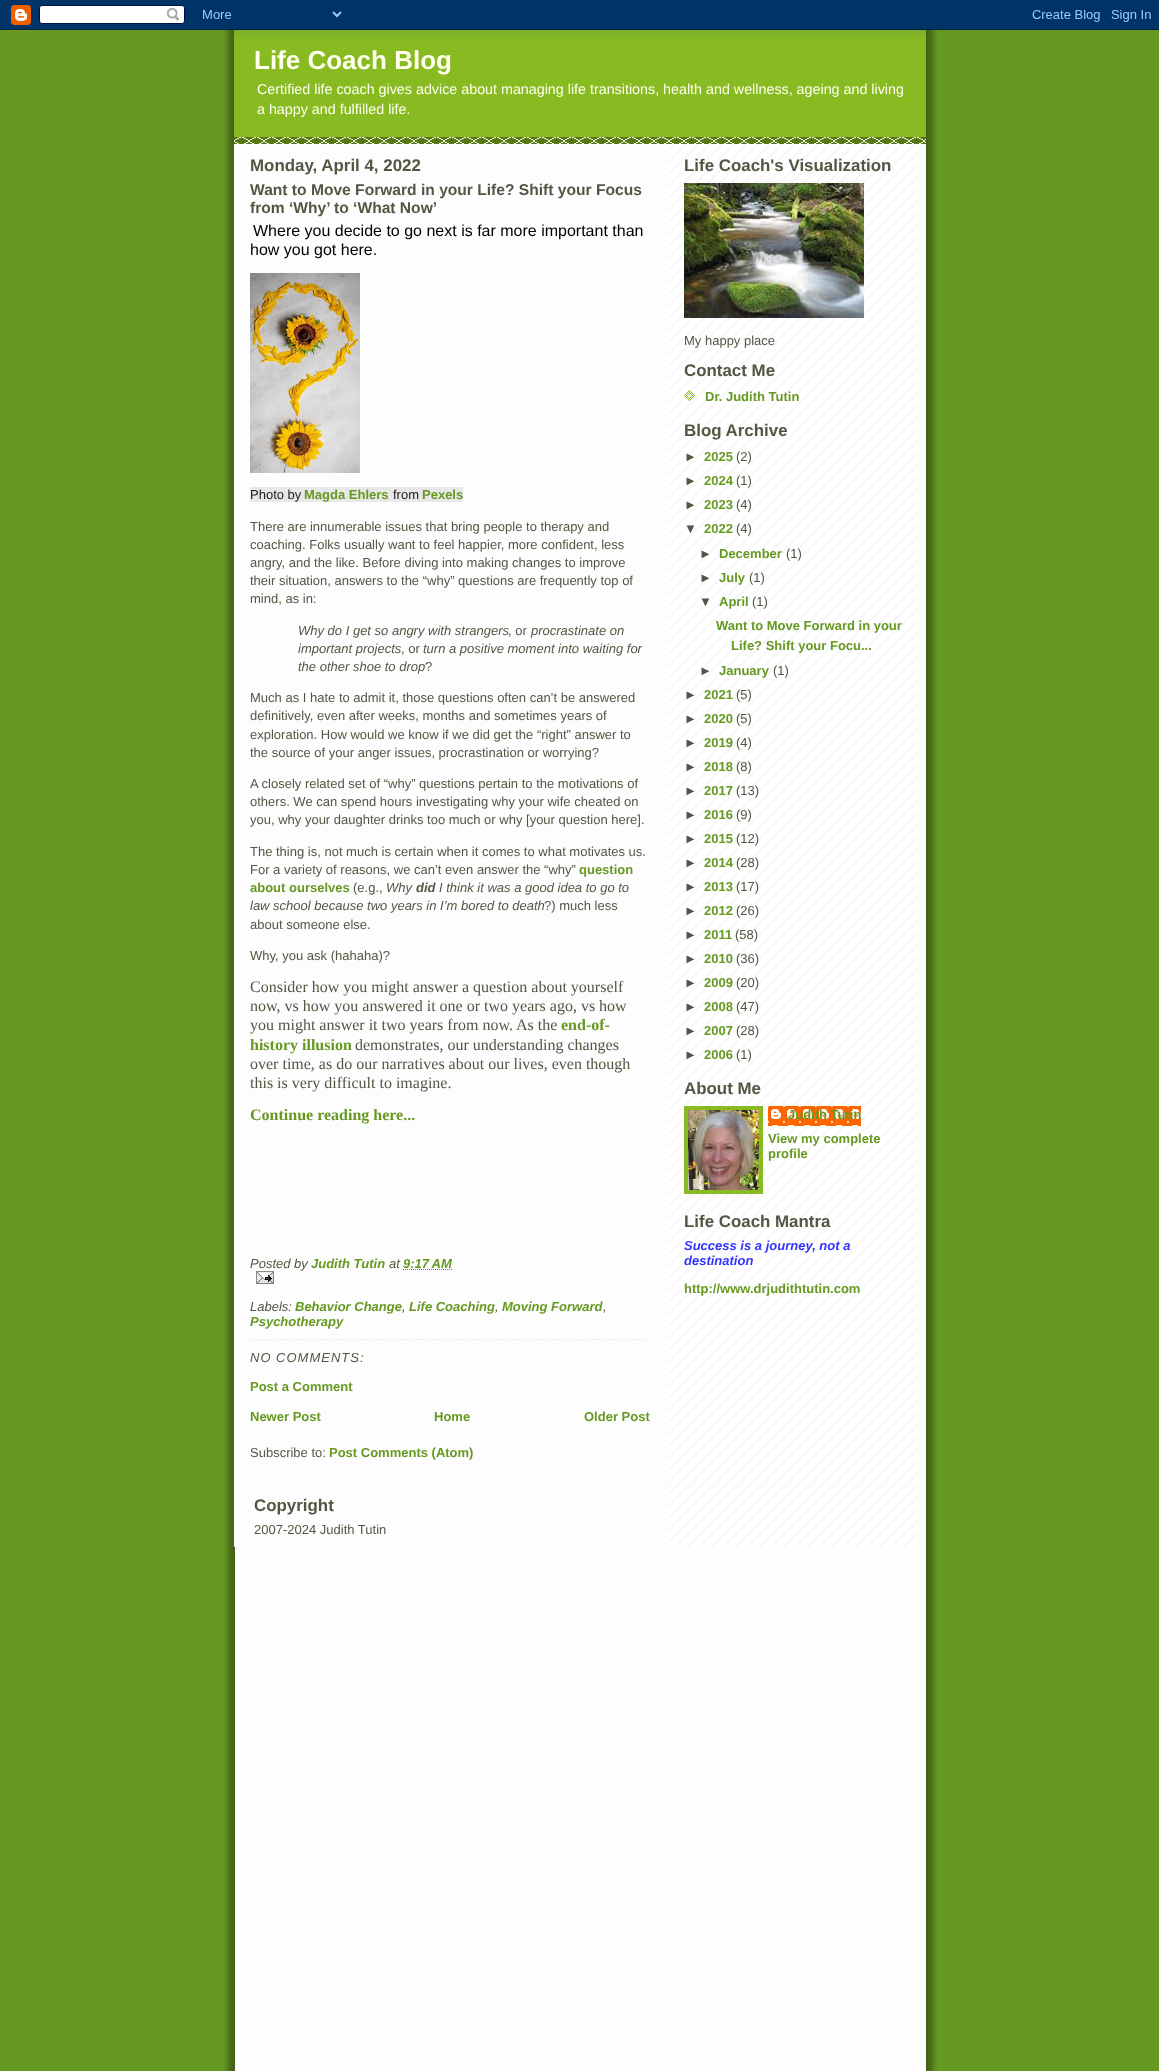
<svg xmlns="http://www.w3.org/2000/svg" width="1159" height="2071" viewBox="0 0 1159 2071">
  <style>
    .t1 { font: bold 26px Liberation Sans; fill: #ffe; }
    .t2 { font: 14.3px Liberation Sans; fill: #ffe; }
    .t3 { font: bold 16.9px Liberation Sans; fill: #554; }
    .t4 { font: bold 15.6px Liberation Sans; fill: #554; }
    .t5 { font: 16px Liberation Sans; fill: #000; }
    .t6 { font: 13px Liberation Sans; fill: #1a1a1a; }
    .t7 { font: bold 13px Liberation Sans; fill: #692; }
    .t8 { font: 13px Liberation Sans; fill: #554; }
    .t9 { font: italic 13px Liberation Sans; fill: #554; }
    .t10 { font: italic bold 13px Liberation Sans; fill: #554; }
    .t11 { font: 16px Liberation Serif; fill: #554; }
    .t12 { font: bold 16px Liberation Serif; fill: #692; }
    .t13 { font: italic bold 13px Liberation Sans; fill: #692; }
    .t14 { font: italic 13px Liberation Sans; letter-spacing: 1px; fill: #554; }
    .t15 { font: bold 13px Liberation Sans; fill: #554; }
    .t16 { font: italic bold 13px Liberation Sans; fill: #33f; }
  </style>
  <rect width="100%" height="100%" fill="#692"/>
  <image x="223" y="30" width="715" height="2041" href="images/1.png"/>
  <image x="0" y="0" width="1159" height="30" href="images/2.png"/>
  <rect x="234" y="144" width="1" height="1403" fill="#fff"/>
  <image x="668" y="144" width="250" height="1403" href="images/3.png"/>
  <rect x="234" y="38" width="692" height="99" fill="#8b2"/>
  <image x="234" y="137" width="692" height="7" href="images/4.png"/>
  <image x="234" y="30" width="692" height="8" href="images/5.png"/>
  <text x="254" y="69" class="t1">Life Coach Blog</text>
  <text x="257" y="94" class="t2">Certified life coach gives advice about managing life transitions, health and wellness, ageing and living</text>
  <text x="257" y="114" class="t2">a happy and fulfilled life.</text>
  <text x="250" y="171" class="t3">Monday, April 4, 2022</text>
  <text x="250" y="195" class="t4">Want to Move Forward in your Life? Shift your Focus</text>
  <text x="250" y="213" class="t4">from ‘Why’ to ‘What Now’</text>
  <text x="253" y="236" class="t5">Where you decide to go next is far more important than</text>
  <text x="250" y="255" class="t5">how you got here.</text>
  <image x="250" y="273" width="110" height="200" href="images/6.png"/>
  <rect x="250" y="487" width="213" height="15" fill="#e8e8e8"/>
  <text x="250" y="499" class="t6">Photo by</text>
  <text x="304" y="499" class="t7">Magda Ehlers</text>
  <text x="393" y="499" class="t6">from</text>
  <text x="422" y="499" class="t7">Pexels</text>
  <text x="250" y="531" class="t8">There are innumerable issues that bring people to therapy and</text>
  <text x="250" y="549" class="t8">coaching. Folks usually want to feel happier, more confident, less</text>
  <text x="250" y="567" class="t8">angry, and the like. Before diving into making changes to improve</text>
  <text x="250" y="585" class="t8">their situation, answers to the “why” questions are frequently top of</text>
  <text x="250" y="603" class="t8">mind, as in:</text>
  <text x="298" y="635" class="t9">Why do I get so angry with strangers</text>
  <text x="508" y="635" class="t8">, or</text>
  <text x="531" y="635" class="t9">procrastinate on</text>
  <text x="298" y="653" class="t9">important projects</text>
  <text x="401" y="653" class="t8">, or</text>
  <text x="423" y="653" class="t9">turn a positive moment into waiting for</text>
  <text x="298" y="671" class="t9">the other shoe to drop</text>
  <text x="425" y="671" class="t8">?</text>
  <text x="250" y="702" class="t8">Much as I hate to admit it, those questions often can’t be answered</text>
  <text x="250" y="720" class="t8">definitively, even after weeks, months and sometimes years of</text>
  <text x="250" y="739" class="t8">exploration. How would we know if we did get the “right” answer to</text>
  <text x="250" y="757" class="t8">the source of your anger issues, procrastination or worrying?</text>
  <text x="250" y="788" class="t8">A closely related set of “why” questions pertain to the motivations of</text>
  <text x="250" y="806" class="t8">others. We can spend hours investigating why your wife cheated on</text>
  <text x="250" y="824" class="t8">you, why your daughter drinks too much or why [your question here].</text>
  <text x="250" y="856" class="t8">The thing is, not much is certain when it comes to what motivates us.</text>
  <text x="250" y="874" class="t8">For a variety of reasons, we can’t even answer the “why”</text>
  <text x="579" y="874" class="t7">question</text>
  <text x="250" y="892" class="t7">about ourselves</text>
  <text x="353" y="892" class="t8">(e.g.,</text>
  <text x="386" y="892" class="t9">Why</text>
  <text x="416" y="892" class="t10">did</text>
  <text x="439" y="892" class="t9">I think it was a good idea to go to</text>
  <text x="250" y="910" class="t9">law school because two years in I’m bored to death</text>
  <text x="544" y="910" class="t8">?) much less</text>
  <text x="250" y="929" class="t8">about someone else.</text>
  <text x="250" y="960" class="t8">Why, you ask (hahaha)?</text>
  <text x="250" y="992" class="t11">Consider how you might answer a question about yourself</text>
  <text x="250" y="1011" class="t11">now, vs how you answered it one or two years ago, vs how</text>
  <text x="250" y="1030" class="t11">you might answer it two years from now. As the</text>
  <text x="561" y="1030" class="t12">end-of-</text>
  <text x="250" y="1050" class="t12">history illusion</text>
  <text x="355" y="1050" class="t11">demonstrates, our understanding changes</text>
  <text x="250" y="1069" class="t11">over time, as do our narratives about our lives, even though</text>
  <text x="250" y="1088" class="t11">this is very difficult to imagine.</text>
  <text x="250" y="1120" class="t12">Continue reading here...</text>
  <text x="250" y="1268" class="t9">Posted by</text>
  <text x="311" y="1268" class="t13">Judith Tutin</text>
  <text x="389" y="1268" class="t9">at</text>
  <text x="403" y="1268" class="t13">9:17 AM</text>
  <path d="M403 1269.5H452" fill="none" stroke="#692" stroke-dasharray="1 1"/>
  <image x="256" y="1271" width="18" height="13" href="images/7.png"/>
  <text x="250" y="1311" class="t9">Labels:</text>
  <text x="295" y="1311" class="t13">Behavior Change</text>
  <text x="402" y="1311" class="t9">,</text>
  <text x="409" y="1311" class="t13">Life Coaching</text>
  <text x="495" y="1311" class="t9">,</text>
  <text x="502" y="1311" class="t13">Moving Forward</text>
  <text x="603" y="1311" class="t9">,</text>
  <text x="250" y="1326" class="t13">Psychotherapy</text>
  <path d="M250 1339.5H650" fill="none" stroke="#eed" stroke-dasharray="3 2.03"/>
  <text x="250" y="1362" class="t14">NO COMMENTS:</text>
  <text x="250" y="1391" class="t7">Post a Comment</text>
  <text x="250" y="1421" class="t7">Newer Post</text>
  <text x="434" y="1421" class="t7">Home</text>
  <text x="584" y="1421" class="t7">Older Post</text>
  <text x="250" y="1457" class="t8">Subscribe to:</text>
  <text x="329" y="1457" class="t7">Post Comments (Atom)</text>
  <text x="684" y="171" class="t3">Life Coach's Visualization</text>
  <image x="684" y="183" width="180" height="135" href="images/8.png"/>
  <text x="684" y="345" class="t8">My happy place</text>
  <text x="684" y="376" class="t3">Contact Me</text>
  <image x="684" y="390" width="11" height="11" href="images/9.png"/>
  <text x="705" y="401" class="t7">Dr. Judith Tutin</text>
  <text x="684" y="436" class="t3">Blog Archive</text>
  <text x="684" y="461" class="t15">►</text>
  <text x="704" y="461" class="t7">2025</text>
  <text x="736" y="461" class="t8">(2)</text>
  <text x="684" y="485" class="t15">►</text>
  <text x="704" y="485" class="t7">2024</text>
  <text x="736" y="485" class="t8">(1)</text>
  <text x="684" y="509" class="t15">►</text>
  <text x="704" y="509" class="t7">2023</text>
  <text x="736" y="509" class="t8">(4)</text>
  <text x="684" y="533" class="t15">▼</text>
  <text x="704" y="533" class="t7">2022</text>
  <text x="736" y="533" class="t8">(4)</text>
  <text x="699" y="558" class="t15">►</text>
  <text x="719" y="558" class="t7">December</text>
  <text x="786" y="558" class="t8">(1)</text>
  <text x="699" y="582" class="t15">►</text>
  <text x="719" y="582" class="t7">July</text>
  <text x="749" y="582" class="t8">(1)</text>
  <text x="699" y="606" class="t15">▼</text>
  <text x="719" y="606" class="t7">April</text>
  <text x="752" y="606" class="t8">(1)</text>
  <text x="716" y="630" class="t7">Want to Move Forward in your</text>
  <text x="731" y="650" class="t7">Life? Shift your Focu...</text>
  <text x="699" y="675" class="t15">►</text>
  <text x="719" y="675" class="t7">January</text>
  <text x="773" y="675" class="t8">(1)</text>
  <text x="684" y="699" class="t15">►</text>
  <text x="704" y="699" class="t7">2021</text>
  <text x="736" y="699" class="t8">(5)</text>
  <text x="684" y="723" class="t15">►</text>
  <text x="704" y="723" class="t7">2020</text>
  <text x="736" y="723" class="t8">(5)</text>
  <text x="684" y="747" class="t15">►</text>
  <text x="704" y="747" class="t7">2019</text>
  <text x="736" y="747" class="t8">(4)</text>
  <text x="684" y="771" class="t15">►</text>
  <text x="704" y="771" class="t7">2018</text>
  <text x="736" y="771" class="t8">(8)</text>
  <text x="684" y="795" class="t15">►</text>
  <text x="704" y="795" class="t7">2017</text>
  <text x="736" y="795" class="t8">(13)</text>
  <text x="684" y="819" class="t15">►</text>
  <text x="704" y="819" class="t7">2016</text>
  <text x="736" y="819" class="t8">(9)</text>
  <text x="684" y="843" class="t15">►</text>
  <text x="704" y="843" class="t7">2015</text>
  <text x="736" y="843" class="t8">(12)</text>
  <text x="684" y="867" class="t15">►</text>
  <text x="704" y="867" class="t7">2014</text>
  <text x="736" y="867" class="t8">(28)</text>
  <text x="684" y="891" class="t15">►</text>
  <text x="704" y="891" class="t7">2013</text>
  <text x="736" y="891" class="t8">(17)</text>
  <text x="684" y="915" class="t15">►</text>
  <text x="704" y="915" class="t7">2012</text>
  <text x="736" y="915" class="t8">(26)</text>
  <text x="684" y="939" class="t15">►</text>
  <text x="704" y="939" class="t7">2011</text>
  <text x="735" y="939" class="t8">(58)</text>
  <text x="684" y="963" class="t15">►</text>
  <text x="704" y="963" class="t7">2010</text>
  <text x="736" y="963" class="t8">(36)</text>
  <text x="684" y="987" class="t15">►</text>
  <text x="704" y="987" class="t7">2009</text>
  <text x="736" y="987" class="t8">(20)</text>
  <text x="684" y="1011" class="t15">►</text>
  <text x="704" y="1011" class="t7">2008</text>
  <text x="736" y="1011" class="t8">(47)</text>
  <text x="684" y="1035" class="t15">►</text>
  <text x="704" y="1035" class="t7">2007</text>
  <text x="736" y="1035" class="t8">(28)</text>
  <text x="684" y="1059" class="t15">►</text>
  <text x="704" y="1059" class="t7">2006</text>
  <text x="736" y="1059" class="t8">(1)</text>
  <text x="684" y="1094" class="t3">About Me</text>
  <rect x="686" y="1108" width="75" height="84" fill="none" stroke="#8b2" stroke-width="4"/>
  <image x="688" y="1110" width="71" height="80" href="images/10.png"/>
  <image x="768" y="1106" width="93" height="20" href="images/11.png"/>
  <text x="788" y="1119" class="t7">Judith Tutin</text>
  <text x="768" y="1143" class="t7">View my complete</text>
  <text x="768" y="1158" class="t7">profile</text>
  <text x="684" y="1227" class="t3">Life Coach Mantra</text>
  <text x="684" y="1250" class="t16">Success is a journey, not a</text>
  <text x="684" y="1265" class="t16">destination</text>
  <text x="684" y="1293" class="t7">http://www.drjudithtutin.com</text>
  <rect x="234" y="1485" width="692" height="1" fill="#f9f9f9"/>
  <text x="254" y="1511" class="t3">Copyright</text>
  <text x="254" y="1534" class="t8">2007-2024 Judith Tutin</text>
</svg>
